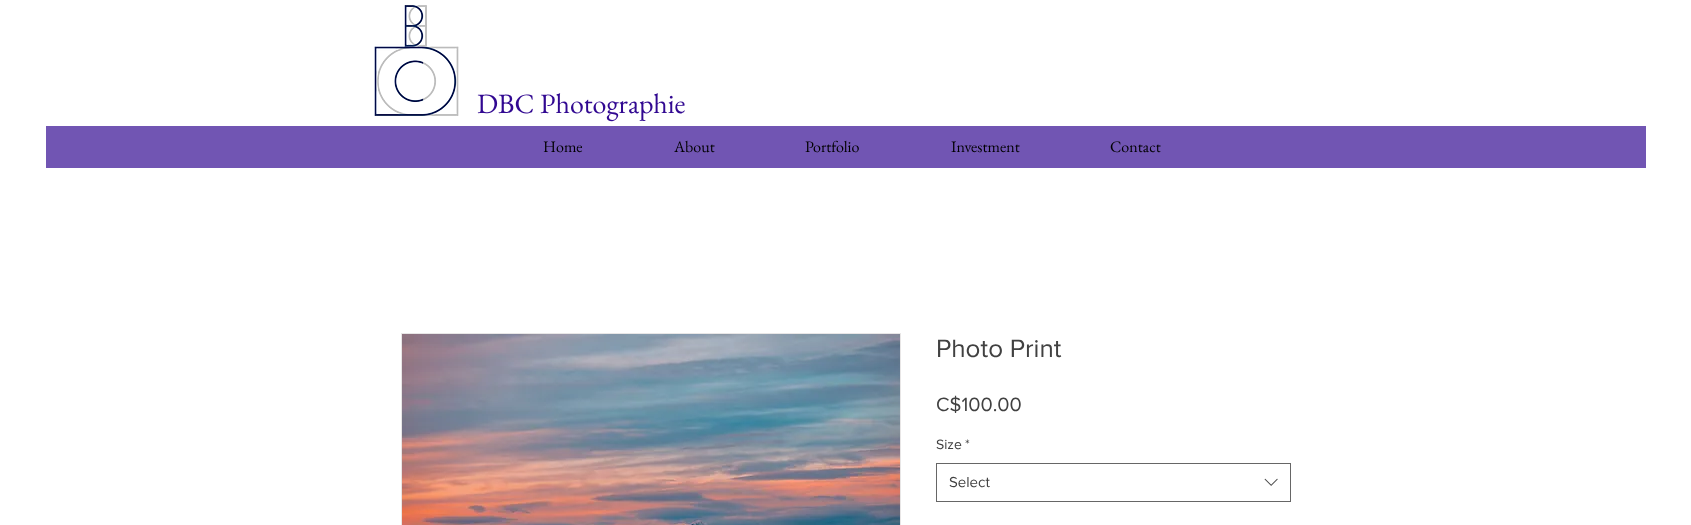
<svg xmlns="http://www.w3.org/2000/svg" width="1691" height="525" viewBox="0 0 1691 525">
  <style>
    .t1 { font: 28px EB Garamond; fill: #310891; }
    .t2 { font: 16px EB Garamond; fill: #000; }
    .t3 { font: 26px 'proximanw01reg'; fill: #414141; }
    .t4 { font: 20px 'proximanw01reg'; fill: #414141; }
    .t5 { font: 14px 'proximanw01reg'; fill: #414141; }
    .t6 { font: 15px 'proximanw01reg'; fill: #414141; }
  </style>
  <rect width="100%" height="100%" fill="#fff"/>
  <image x="374" y="5" width="85" height="111" href="images/1.png"/>
  <text x="477" y="113" class="t1">DBC Photographie</text>
  <rect x="46" y="126" width="1600" height="42" fill="#7155b3"/>
  <text x="543" y="152" class="t2">Home</text>
  <text x="674" y="152" class="t2">About</text>
  <text x="805" y="152" class="t2">Portfolio</text>
  <text x="951" y="152" class="t2">Investment</text>
  <text x="1110" y="152" class="t2">Contact</text>
  <rect x="401.5" y="333.5" width="499" height="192" fill="none" stroke="#e8e6e6"/>
  <image x="402" y="334" width="498" height="191" href="images/2.png"/>
  <text x="936" y="357" class="t3">Photo Print</text>
  <text x="936" y="411" class="t4">C$100.00</text>
  <text x="936" y="449" class="t5">Size</text>
  <text x="965" y="449" class="t5">*</text>
  <rect x="936.5" y="463.5" width="354" height="38" fill="none" stroke="#666"/>
  <text x="949" y="487" class="t6">Select</text>
  <image x="1264" y="478" width="14" height="8" href="images/3.png"/>
</svg>
